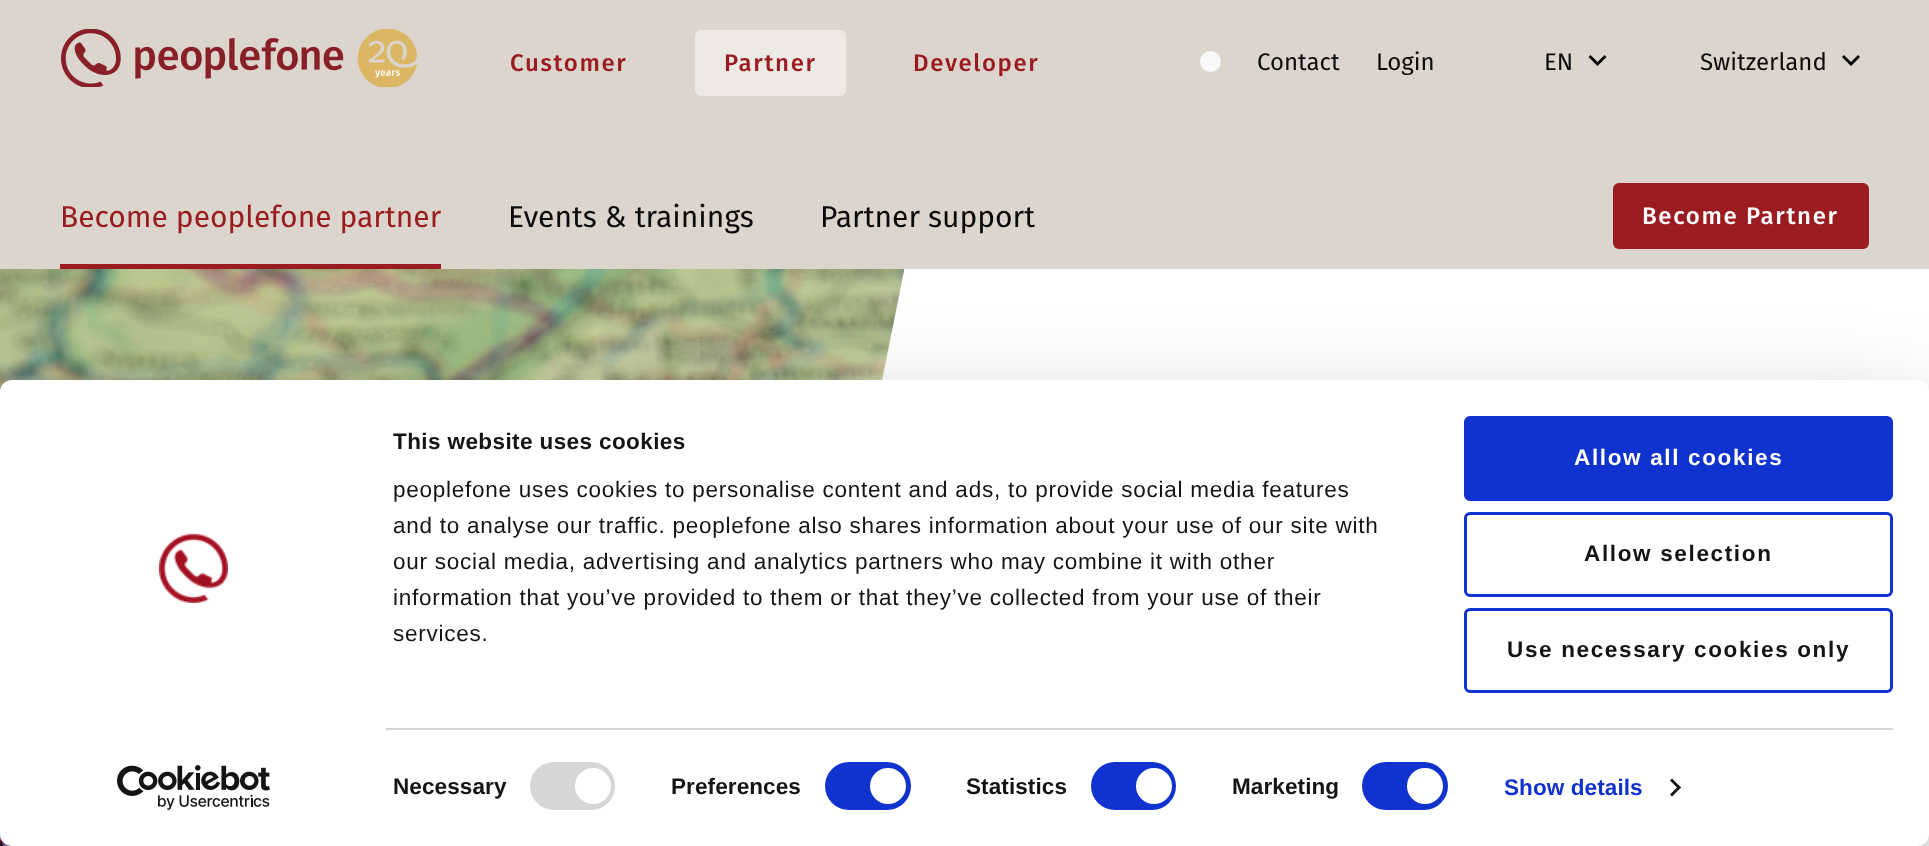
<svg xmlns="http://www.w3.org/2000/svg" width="1929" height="846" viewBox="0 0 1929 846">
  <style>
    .t1 { font: 500 24px Fira Sans; letter-spacing: 1.65px; fill: #9b1c20; }
    .t2 { font: 24px Fira Sans; fill: #0a0a0a; }
    .t3 { font: 30px Fira Sans; fill: #9b1c20; }
    .t4 { font: 30px Fira Sans; fill: #0a0a0a; }
    .t5 { font: 500 24px Fira Sans; letter-spacing: 1.65px; fill: #fff; }
    .t6 { font: bold 22.5px Liberation Sans; letter-spacing: 0.4px; fill: #141414; }
    .t7 { font: 22.5px Liberation Sans; letter-spacing: 0.75px; fill: #141414; }
    .t8 { font: bold 22.5px Liberation Sans; letter-spacing: 0.1px; fill: #141414; }
    .t9 { font: bold 22.5px Liberation Sans; letter-spacing: 0.1px; fill: #1032cf; }
    .t10 { font: bold 22.5px Liberation Sans; letter-spacing: 1.65px; fill: #fff; }
    .t11 { font: bold 22.5px Liberation Sans; letter-spacing: 1.65px; fill: #141414; }
  </style>
  <rect width="100%" height="100%" fill="#fff"/>
  <rect x="0" y="0" width="1929" height="269" fill="#dbd5cd"/>
  <image x="61" y="29" width="356" height="58" href="images/1.png"/>
  <text x="510" y="71" class="t1">Customer</text>
  <rect x="695" y="30" width="151" height="66" rx="6" fill="#edeae6"/>
  <text x="724" y="71" class="t1">Partner</text>
  <text x="913" y="71" class="t1">Developer</text>
  <circle cx="1210.5" cy="61.5" r="10.5" fill="#f8f8f8"/>
  <text x="1257" y="70" class="t2">Contact</text>
  <text x="1376" y="70" class="t2">Login</text>
  <text x="1544" y="70" class="t2">EN</text>
  <path d="M1604.5 55L1597.5 62L1590.5 55L1588.5 57L1597.5 66L1606.5 57Z" fill="#000"/>
  <text x="1700" y="70" class="t2">Switzerland</text>
  <path d="M1858 55L1851 62L1844 55L1842 57L1851 66L1860 57Z" fill="#000"/>
  <text x="60" y="227" class="t3">Become peoplefone partner</text>
  <rect x="60" y="264" width="381" height="5" fill="#9b1c20"/>
  <text x="508" y="227" class="t4">Events &amp; trainings</text>
  <text x="820" y="227" class="t4">Partner support</text>
  <rect x="1613" y="183" width="256" height="66" rx="6" fill="#9b1c20"/>
  <text x="1642" y="224" class="t5">Become Partner</text>
  <image x="0" y="269" width="905" height="577" href="images/2.png"/>
  <rect x="0" y="425" width="1929" height="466" rx="12" fill="#0000004d" filter="blur(52.5px)"/>
  <rect x="0" y="380" width="1929" height="466" rx="12" fill="#fff"/>
  <image x="159" y="533" width="69" height="70" href="images/3.png"/>
  <image x="117" y="765" width="153" height="45" href="images/4.png"/>
  <text x="393" y="449" class="t6">This website uses cookies</text>
  <text x="393" y="497" class="t7">peoplefone uses cookies to personalise content and ads, to provide social media features</text>
  <text x="393" y="533" class="t7">and to analyse our traffic. peoplefone also shares information about your use of our site with</text>
  <text x="393" y="569" class="t7">our social media, advertising and analytics partners who may combine it with other</text>
  <text x="393" y="605" class="t7">information that you’ve provided to them or that they’ve collected from your use of their</text>
  <text x="393" y="641" class="t7">services.</text>
  <rect x="386" y="728" width="1507" height="2" fill="#d6d6d6"/>
  <text x="393" y="794" class="t8">Necessary</text>
  <rect x="530" y="762" width="85" height="48" rx="24" fill="#d6d6d6"/>
  <circle cx="593" cy="786" r="18" fill="#fff"/>
  <text x="671" y="794" class="t8">Preferences</text>
  <rect x="825" y="762" width="86" height="48" rx="24" fill="#1032cf"/>
  <circle cx="888" cy="786" r="18" fill="#fff"/>
  <text x="966" y="794" class="t8">Statistics</text>
  <rect x="1091" y="762" width="85" height="48" rx="24" fill="#1032cf"/>
  <circle cx="1154" cy="786" r="18" fill="#fff"/>
  <text x="1232" y="794" class="t8">Marketing</text>
  <rect x="1362" y="762" width="86" height="48" rx="24" fill="#1032cf"/>
  <circle cx="1425" cy="786" r="18" fill="#fff"/>
  <text x="1504" y="795" class="t9">Show details</text>
  <path d="M1672 778.5L1681 787.5L1679 789.5L1670 780.5Z" fill="#141414"/>
  <path d="M1679 785.5L1681 787.5L1672 796.5L1670 794.5Z" fill="#141414"/>
  <rect x="1465.5" y="417.5" width="426" height="82" rx="4.5" fill="#1032cf" stroke="#1032cf" stroke-width="3"/>
  <text x="1574" y="465" class="t10">Allow all cookies</text>
  <rect x="1465.5" y="513.5" width="426" height="82" rx="4.5" fill="none" stroke="#1032cf" stroke-width="3"/>
  <text x="1584" y="561" class="t11">Allow selection</text>
  <rect x="1465.5" y="609.5" width="426" height="82" rx="4.5" fill="none" stroke="#1032cf" stroke-width="3"/>
  <text x="1507" y="657" class="t11">Use necessary cookies only</text>
</svg>
